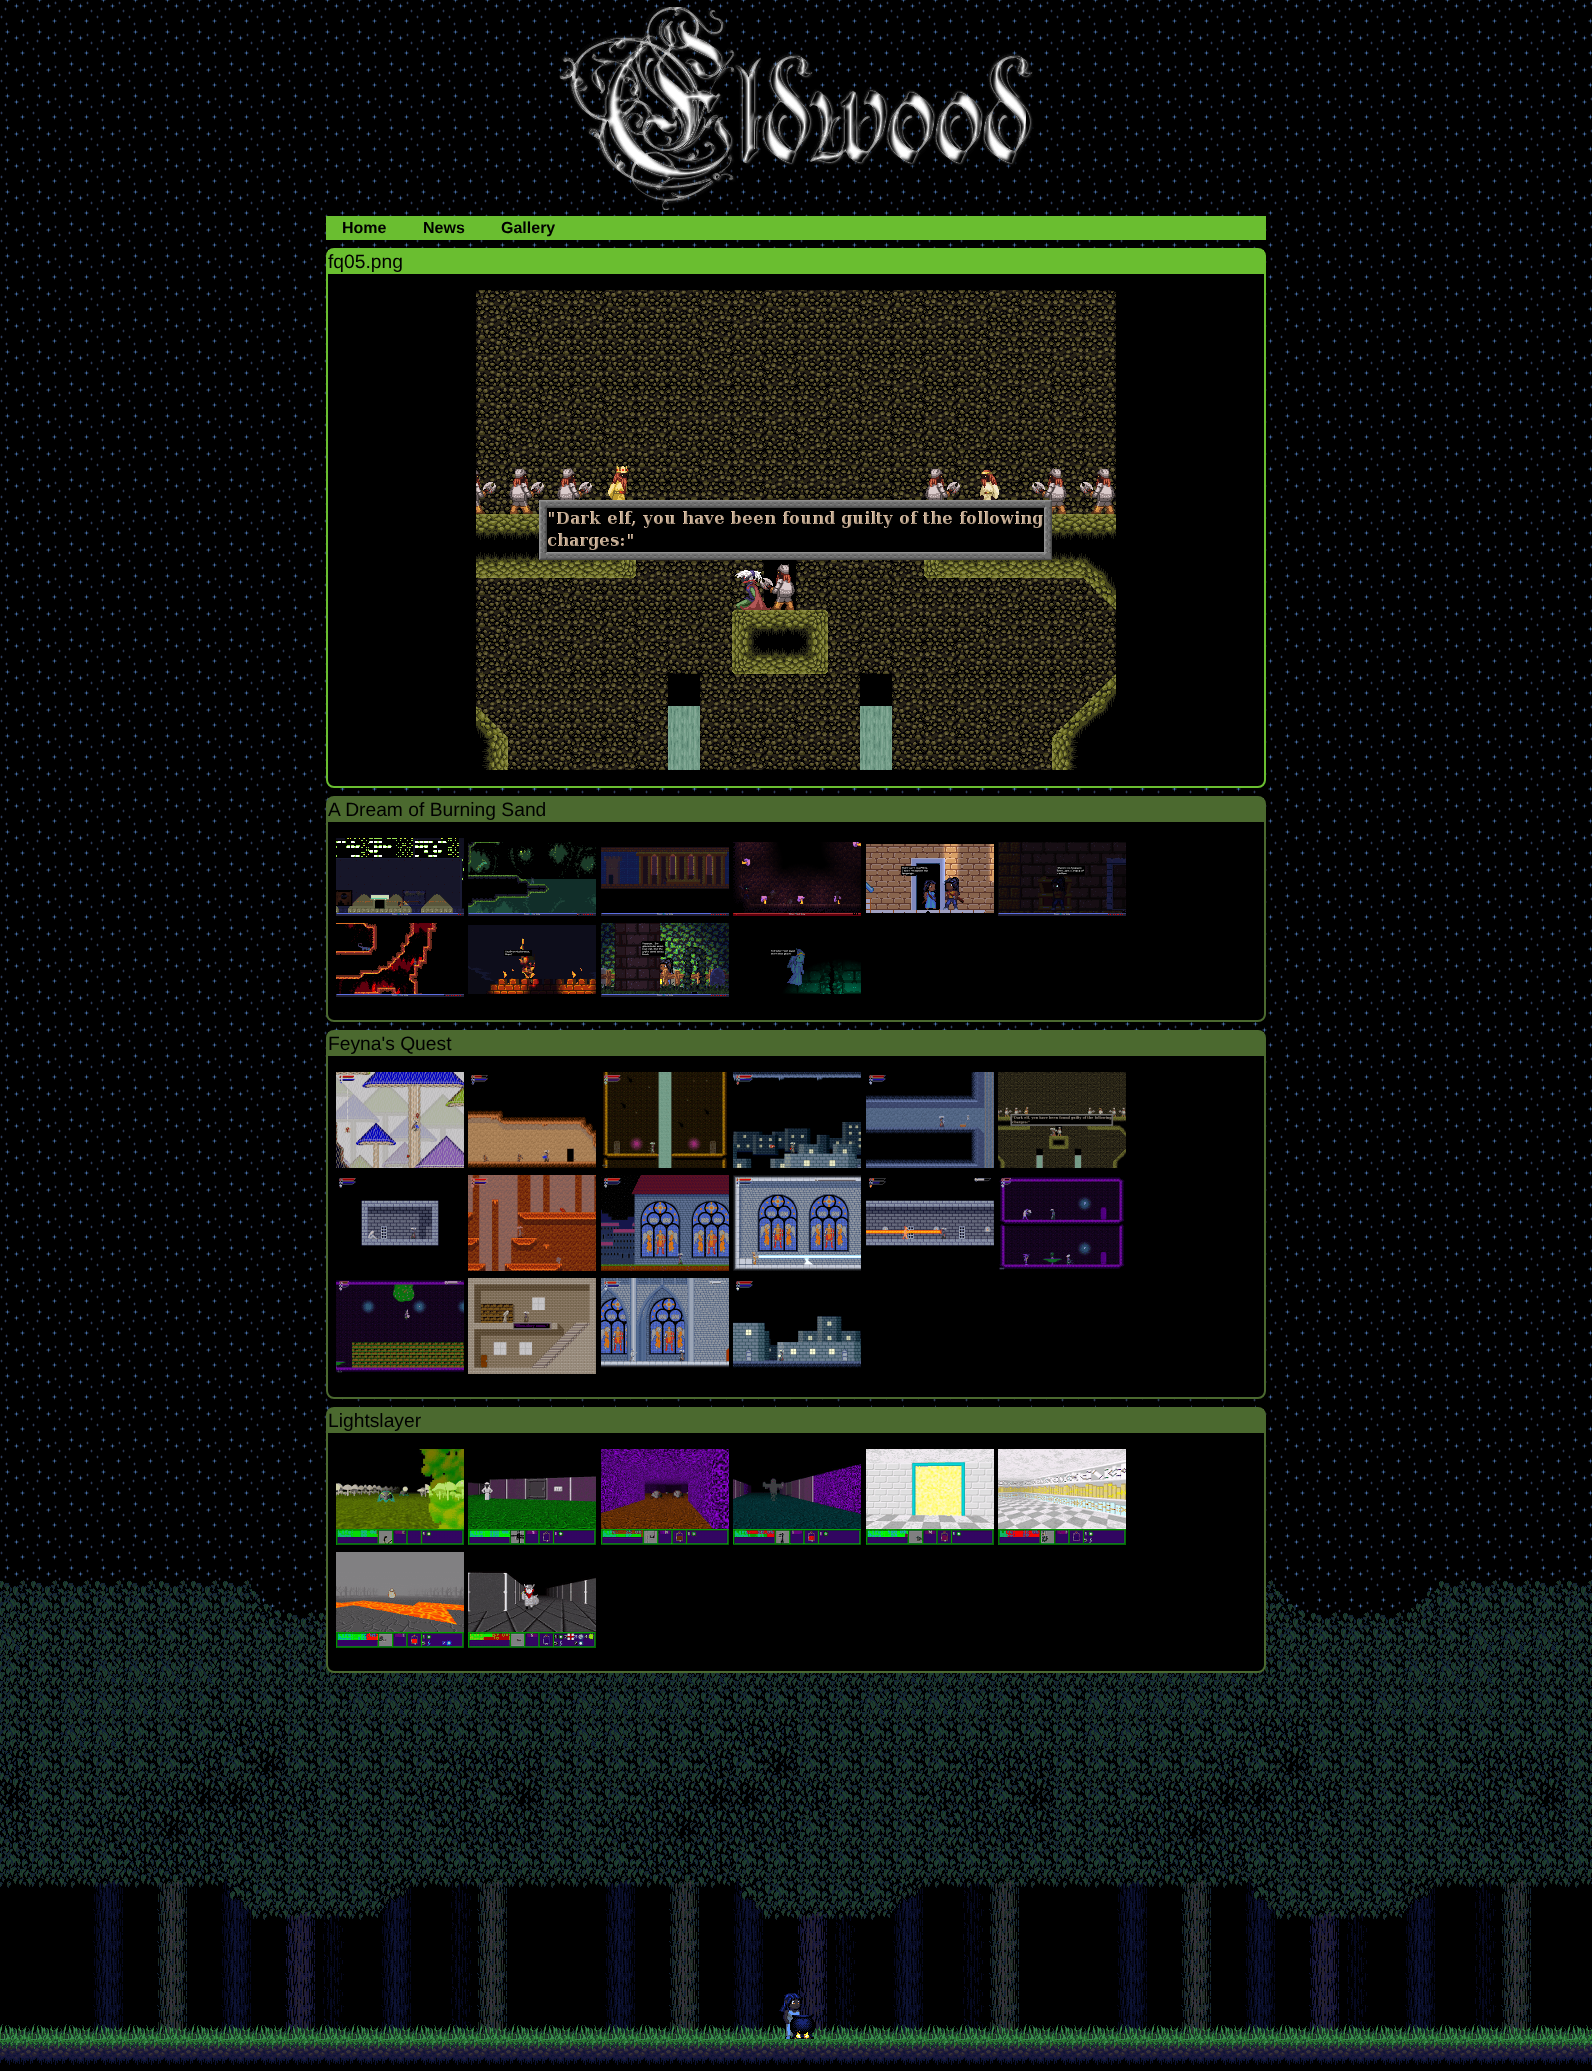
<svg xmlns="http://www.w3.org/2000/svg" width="1592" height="2071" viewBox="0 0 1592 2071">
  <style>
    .t1 { font: bold 16px Liberation Sans; fill: #000; }
    .t2 { font: 19.25px Liberation Sans; fill: #000; }
  </style>
  <rect width="100%" height="100%" fill="#fff"/>
  <image x="0" y="0" width="1592" height="1623" href="images/1.png"/>
  <image x="0" y="1580" width="1592" height="491" href="images/2.png"/>
  <image x="779" y="1993" width="36" height="46" href="images/3.png"/>
  <image x="559" y="7" width="475" height="203" href="images/4.png"/>
  <rect x="326" y="216" width="940" height="24" fill="#6abe30"/>
  <text x="342" y="233" class="t1">Home</text>
  <text x="423" y="233" class="t1">News</text>
  <text x="501" y="233" class="t1">Gallery</text>
  <rect x="327" y="249" width="938" height="538" rx="7" fill="#000" stroke="#6abe30" stroke-width="2"/>
  <rect x="328" y="250" width="936" height="24" fill="#6abe30"/>
  <text x="328" y="268" class="t2">fq05.png</text>
  <image x="476" y="290" width="640" height="480" href="images/5.png"/>
  <rect x="327" y="797" width="938" height="224" rx="7" fill="#000" stroke="#4b692f" stroke-width="2"/>
  <rect x="328" y="798" width="936" height="24" fill="#4b692f"/>
  <text x="328" y="816" class="t2">A Dream of Burning Sand</text>
  <image x="336" y="838" width="128" height="78" href="images/6.png"/>
  <image x="468" y="842" width="128" height="74" href="images/7.png"/>
  <image x="601" y="847" width="128" height="69" href="images/8.png"/>
  <image x="733" y="842" width="128" height="74" href="images/9.png"/>
  <image x="866" y="844" width="128" height="69" href="images/10.png"/>
  <image x="998" y="842" width="128" height="74" href="images/11.png"/>
  <image x="336" y="923" width="128" height="74" href="images/12.png"/>
  <image x="468" y="925" width="128" height="69" href="images/13.png"/>
  <image x="601" y="923" width="128" height="74" href="images/14.png"/>
  <image x="771" y="948" width="90" height="46" href="images/15.png"/>
  <rect x="327" y="1031" width="938" height="367" rx="7" fill="#000" stroke="#4b692f" stroke-width="2"/>
  <rect x="328" y="1032" width="936" height="24" fill="#4b692f"/>
  <text x="328" y="1050" class="t2">Feyna's Quest</text>
  <image x="336" y="1072" width="128" height="96" href="images/16.png"/>
  <image x="468" y="1075" width="128" height="93" href="images/17.png"/>
  <image x="602" y="1072" width="126" height="96" href="images/18.png"/>
  <image x="733" y="1072" width="128" height="96" href="images/19.png"/>
  <image x="866" y="1072" width="128" height="96" href="images/20.png"/>
  <image x="998" y="1072" width="128" height="96" href="images/21.png"/>
  <image x="339" y="1178" width="100" height="68" href="images/22.png"/>
  <image x="468" y="1175" width="128" height="96" href="images/23.png"/>
  <image x="601" y="1175" width="128" height="96" href="images/24.png"/>
  <image x="733" y="1175" width="128" height="96" href="images/25.png"/>
  <image x="866" y="1178" width="128" height="68" href="images/26.png"/>
  <image x="999" y="1177" width="126" height="93" href="images/27.png"/>
  <image x="336" y="1280" width="128" height="93" href="images/28.png"/>
  <image x="468" y="1278" width="128" height="96" href="images/29.png"/>
  <image x="601" y="1278" width="128" height="90" href="images/30.png"/>
  <image x="733" y="1281" width="128" height="87" href="images/31.png"/>
  <rect x="327" y="1408" width="938" height="264" rx="7" fill="#000" stroke="#4b692f" stroke-width="2"/>
  <rect x="328" y="1409" width="936" height="24" fill="#4b692f"/>
  <text x="328" y="1427" class="t2">Lightslayer</text>
  <image x="336" y="1449" width="128" height="96" href="images/32.png"/>
  <image x="468" y="1475" width="128" height="70" href="images/33.png"/>
  <image x="601" y="1449" width="128" height="96" href="images/34.png"/>
  <image x="733" y="1464" width="128" height="81" href="images/35.png"/>
  <image x="866" y="1449" width="128" height="96" href="images/36.png"/>
  <image x="998" y="1449" width="128" height="96" href="images/37.png"/>
  <image x="336" y="1552" width="128" height="96" href="images/38.png"/>
  <image x="468" y="1571" width="128" height="77" href="images/39.png"/>
</svg>
